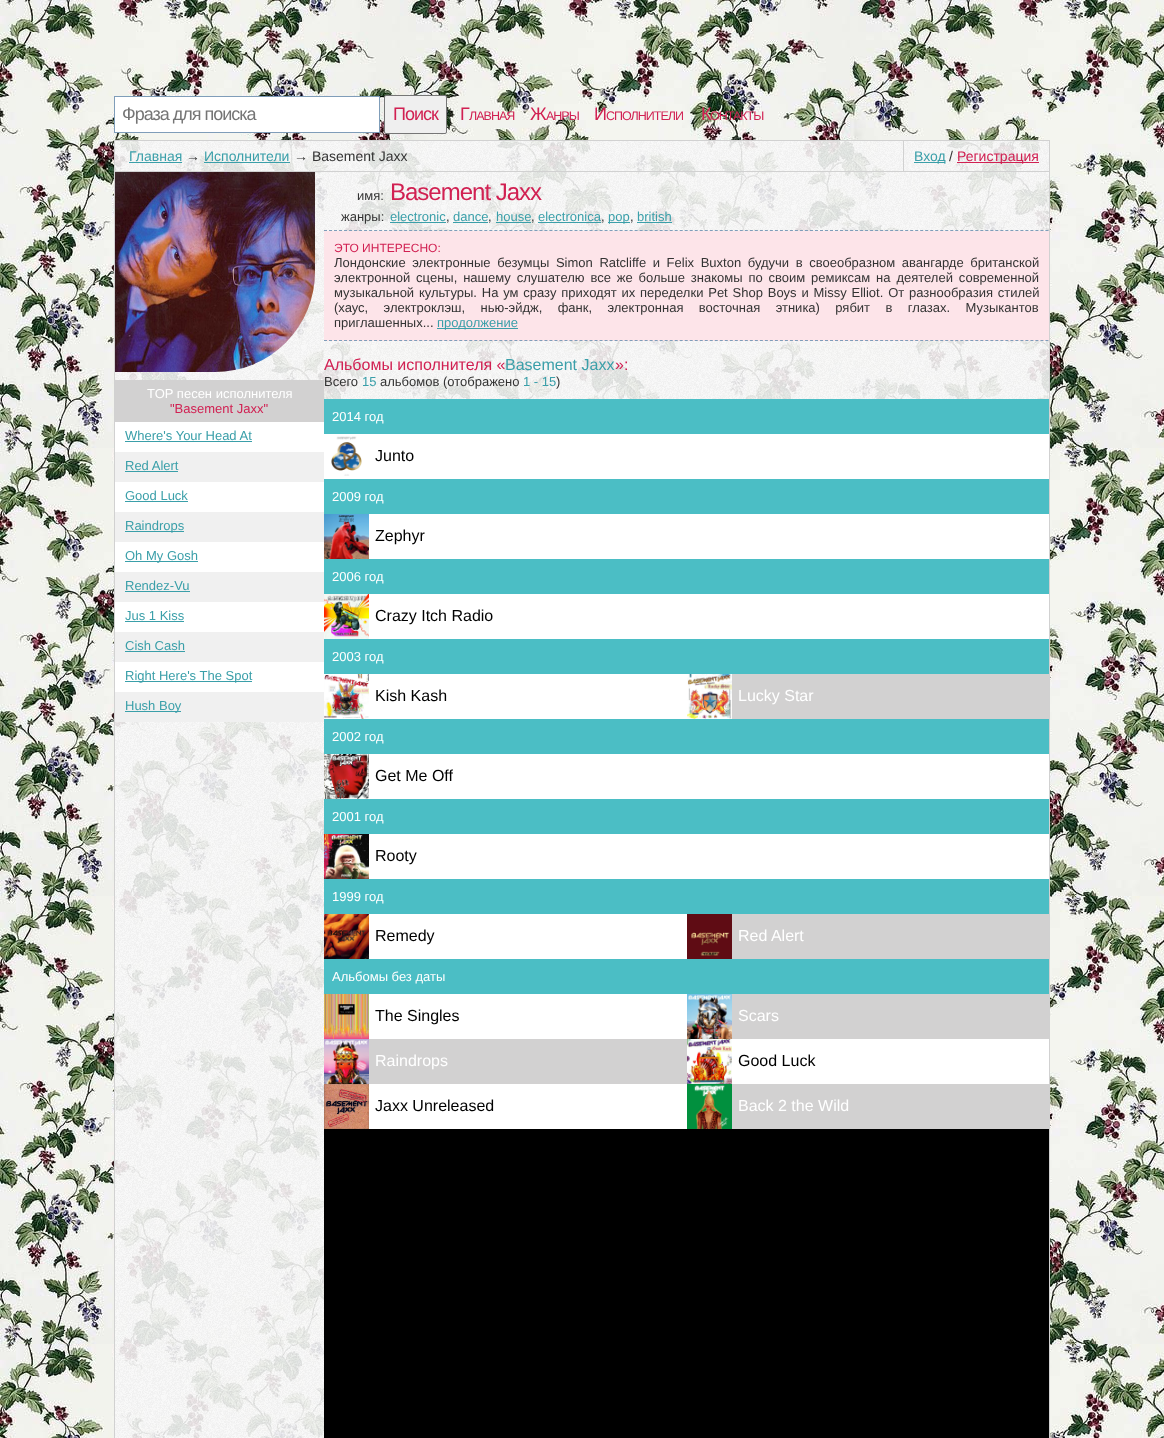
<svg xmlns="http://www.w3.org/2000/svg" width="1164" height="1438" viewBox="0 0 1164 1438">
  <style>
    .t1 { font: 18px Liberation Sans; letter-spacing: -1px; fill: #757575; }
    .t2 { font: 18px Liberation Sans; letter-spacing: -1px; fill: #d12052; }
    .t3 { font: 12.5px Liberation Sans; letter-spacing: -1px; fill: #d12052; }
    .t4 { font: 14px Liberation Sans; fill: #3a9fa9; }
    .t5 { font: 14px Liberation Sans; fill: #333; }
    .t6 { font: 14px Liberation Sans; fill: #d12052; }
    .t7 { font: 13px Liberation Sans; fill: #fff; }
    .t8 { font: 13px Liberation Sans; fill: #d12052; }
    .t9 { font: 13px Liberation Sans; fill: #3a9fa9; }
    .t10 { font: 13px Liberation Sans; fill: #333; }
    .t11 { font: 24px Liberation Sans; letter-spacing: -1px; fill: #d12052; }
    .t12 { font: 12px Liberation Sans; fill: #d12052; }
    .t13 { font: 16px Liberation Sans; fill: #d12052; }
    .t14 { font: 16px Liberation Sans; fill: #3a9fa9; }
    .t15 { font: 16px Liberation Sans; fill: #000; }
    .t16 { font: 16px Liberation Sans; fill: #fff; }
  </style>
  <rect width="100%" height="100%" fill="#fff"/>
  <image x="0" y="0" width="1164" height="1438" href="images/1.png"/>
  <rect x="114.5" y="96.5" width="265" height="36" fill="#fff" stroke="#7f9db9"/>
  <text x="122" y="120" class="t1">Фраза для поиска</text>
  <rect x="384.5" y="95.5" width="62" height="38" rx="1.5" fill="#efefef" stroke="#767676"/>
  <text x="393" y="120" class="t2">Поиск</text>
  <text x="460" y="120" class="t2">Г</text>
  <text x="469" y="120" class="t3">ЛАВНАЯ</text>
  <text x="530" y="120" class="t2">Ж</text>
  <text x="546" y="120" class="t3">АНРЫ</text>
  <text x="594" y="120" class="t2">И</text>
  <text x="606" y="120" class="t3">СПОЛНИТЕЛИ</text>
  <text x="701" y="120" class="t2">К</text>
  <text x="710" y="120" class="t3">ОНТАКТЫ</text>
  <image x="115" y="141" width="934" height="1297" href="images/2.png"/>
  <rect x="114.5" y="140.5" width="935" height="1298" fill="none" stroke="#d1d1d1"/>
  <rect x="115" y="171" width="934" height="1" fill="#d1d1d1"/>
  <text x="129" y="161" class="t4">Главная</text>
  <rect x="129" y="162" width="53" height="1" fill="#3a9fa9"/>
  <text x="186" y="161" class="t5">→</text>
  <text x="204" y="161" class="t4">Исполнители</text>
  <rect x="204" y="162" width="86" height="1" fill="#3a9fa9"/>
  <text x="294" y="161" class="t5">→ Basement Jaxx</text>
  <rect x="903" y="141" width="1" height="31" fill="#d1d1d1"/>
  <rect x="914" y="162" width="31" height="1" fill="#3a9fa9"/>
  <text x="914" y="161" class="t4">Вход</text>
  <text x="949" y="161" class="t5">/</text>
  <rect x="957" y="162" width="82" height="1" fill="#d12052"/>
  <text x="957" y="161" class="t6">Регистрация</text>
  <image x="115" y="172" width="200" height="200" href="images/3.png"/>
  <rect x="115" y="380" width="209" height="42" fill="#d2d1d1"/>
  <text x="147" y="398" class="t7">TOP песен исполнителя</text>
  <text x="170" y="413" class="t8">"Basement Jaxx"</text>
  <rect x="115" y="422" width="209" height="270" fill="#fff"/>
  <text x="125" y="440" class="t9">Where's Your Head At</text>
  <rect x="125" y="441" width="127" height="1" fill="#3a9fa9"/>
  <rect x="115" y="452" width="209" height="30" fill="#f0f0f0"/>
  <text x="125" y="470" class="t9">Red Alert</text>
  <rect x="125" y="471" width="53" height="1" fill="#3a9fa9"/>
  <text x="125" y="500" class="t9">Good Luck</text>
  <rect x="125" y="501" width="63" height="1" fill="#3a9fa9"/>
  <rect x="115" y="512" width="209" height="30" fill="#f0f0f0"/>
  <rect x="125" y="531" width="59" height="1" fill="#3a9fa9"/>
  <text x="125" y="530" class="t9">Raindrops</text>
  <rect x="125" y="561" width="73" height="1" fill="#3a9fa9"/>
  <text x="125" y="560" class="t9">Oh My Gosh</text>
  <rect x="115" y="572" width="209" height="30" fill="#f0f0f0"/>
  <text x="125" y="590" class="t9">Rendez-Vu</text>
  <rect x="125" y="591" width="65" height="1" fill="#3a9fa9"/>
  <text x="125" y="620" class="t9">Jus 1 Kiss</text>
  <rect x="125" y="621" width="59" height="1" fill="#3a9fa9"/>
  <rect x="115" y="632" width="209" height="30" fill="#f0f0f0"/>
  <text x="125" y="650" class="t9">Cish Cash</text>
  <rect x="125" y="651" width="60" height="1" fill="#3a9fa9"/>
  <rect x="125" y="681" width="127" height="1" fill="#3a9fa9"/>
  <text x="125" y="680" class="t9">Right Here's The Spot</text>
  <rect x="115" y="692" width="209" height="30" fill="#f0f0f0"/>
  <rect x="125" y="711" width="56" height="1" fill="#3a9fa9"/>
  <text x="125" y="710" class="t9">Hush Boy</text>
  <path d="M324 230.5H1049" fill="none" stroke="#7f9db9" stroke-dasharray="3 2.01"/>
  <text x="357" y="200" class="t10">имя:</text>
  <text x="390" y="200" class="t11">Basement Jaxx</text>
  <text x="341" y="221" class="t10">жанры:</text>
  <text x="390" y="221" class="t9">electronic</text>
  <rect x="390" y="222" width="56" height="1" fill="#3a9fa9"/>
  <text x="446" y="221" class="t10">,</text>
  <text x="453" y="221" class="t9">dance</text>
  <rect x="453" y="222" width="35" height="1" fill="#3a9fa9"/>
  <text x="488" y="221" class="t10">,</text>
  <text x="496" y="221" class="t9">house</text>
  <rect x="496" y="222" width="35" height="1" fill="#3a9fa9"/>
  <text x="531" y="221" class="t10">,</text>
  <text x="538" y="221" class="t9">electronica</text>
  <rect x="538" y="222" width="63" height="1" fill="#3a9fa9"/>
  <text x="601" y="221" class="t10">,</text>
  <rect x="608" y="222" width="22" height="1" fill="#3a9fa9"/>
  <text x="608" y="221" class="t9">pop</text>
  <text x="630" y="221" class="t10">,</text>
  <text x="637" y="221" class="t9">british</text>
  <rect x="637" y="222" width="35" height="1" fill="#3a9fa9"/>
  <rect x="324" y="231" width="725" height="110" fill="#fde4e9"/>
  <path d="M324 340.5H1049" fill="none" stroke="#7f9db9" stroke-dasharray="3 2.01"/>
  <text x="334" y="252" class="t12">ЭТО ИНТЕРЕСНО:</text>
  <text x="334" y="267" word-spacing="3" class="t10">Лондонские электронные безумцы Simon Ratcliffe и Felix Buxton будучи в своеобразном авангарде британской</text>
  <text x="334" y="282" word-spacing="2.25" class="t10">электронной сцены, нашему слушателю все же больше знакомы по своим ремиксам на деятелей современной</text>
  <text x="334" y="297" word-spacing="1.2" class="t10">музыкальной культуры. На ум сразу приходят их переделки Pet Shop Boys и Missy Elliot. От разнообразия стилей</text>
  <text x="334" y="312" word-spacing="11.75" class="t10">(хаус, электроклэш, нью-эйдж, фанк, электронная восточная этника) рябит в глазах. Музыкантов</text>
  <text x="334" y="327" class="t10">приглашенных...</text>
  <rect x="437" y="328" width="81" height="1" fill="#3a9fa9"/>
  <text x="437" y="327" class="t9">продолжение</text>
  <text x="324" y="370" class="t13">Альбомы исполнителя «</text>
  <text x="505" y="370" class="t14">Basement Jaxx</text>
  <text x="615" y="370" class="t13">»:</text>
  <text x="324" y="386" class="t10">Всего</text>
  <text x="362" y="386" class="t9">15</text>
  <text x="380" y="386" class="t10">альбомов (отображено</text>
  <text x="523" y="386" class="t9">1 - 15</text>
  <text x="556" y="386" class="t10">)</text>
  <rect x="324" y="434" width="725" height="695" fill="#fff"/>
  <rect x="324" y="399" width="725" height="35" fill="#4bbec5"/>
  <text x="332" y="421" class="t7">2014 год</text>
  <image x="331" y="436" width="31" height="40" href="images/4.png"/>
  <text x="375" y="461" class="t15">Junto</text>
  <rect x="324" y="479" width="725" height="35" fill="#4bbec5"/>
  <text x="332" y="501" class="t7">2009 год</text>
  <image x="324" y="514" width="45" height="45" href="images/5.png"/>
  <text x="375" y="541" class="t15">Zephyr</text>
  <rect x="324" y="559" width="725" height="35" fill="#4bbec5"/>
  <text x="332" y="581" class="t7">2006 год</text>
  <image x="324" y="594" width="45" height="45" href="images/6.png"/>
  <text x="375" y="621" class="t15">Crazy Itch Radio</text>
  <rect x="324" y="639" width="725" height="35" fill="#4bbec5"/>
  <text x="332" y="661" class="t7">2003 год</text>
  <image x="324" y="674" width="45" height="45" href="images/7.png"/>
  <text x="375" y="701" class="t15">Kish Kash</text>
  <rect x="732" y="674" width="317" height="45" fill="#d2d1d1"/>
  <image x="687" y="674" width="45" height="45" href="images/8.png"/>
  <text x="738" y="701" class="t16">Lucky Star</text>
  <rect x="324" y="719" width="725" height="35" fill="#4bbec5"/>
  <text x="332" y="741" class="t7">2002 год</text>
  <image x="324" y="754" width="45" height="45" href="images/9.png"/>
  <text x="375" y="781" class="t15">Get Me Off</text>
  <rect x="324" y="799" width="725" height="35" fill="#4bbec5"/>
  <text x="332" y="821" class="t7">2001 год</text>
  <image x="324" y="834" width="45" height="45" href="images/10.png"/>
  <text x="375" y="861" class="t15">Rooty</text>
  <rect x="324" y="879" width="725" height="35" fill="#4bbec5"/>
  <text x="332" y="901" class="t7">1999 год</text>
  <image x="324" y="914" width="45" height="45" href="images/11.png"/>
  <text x="375" y="941" class="t15">Remedy</text>
  <rect x="732" y="914" width="317" height="45" fill="#d2d1d1"/>
  <image x="687" y="914" width="45" height="45" href="images/12.png"/>
  <text x="738" y="941" class="t16">Red Alert</text>
  <rect x="324" y="959" width="725" height="35" fill="#4bbec5"/>
  <text x="332" y="981" class="t7">Альбомы без даты</text>
  <image x="324" y="994" width="45" height="45" href="images/13.png"/>
  <text x="375" y="1021" class="t15">The Singles</text>
  <rect x="732" y="994" width="317" height="45" fill="#d2d1d1"/>
  <image x="687" y="994" width="45" height="45" href="images/14.png"/>
  <text x="738" y="1021" class="t16">Scars</text>
  <rect x="369" y="1039" width="318" height="45" fill="#d2d1d1"/>
  <image x="324" y="1039" width="45" height="45" href="images/15.png"/>
  <text x="375" y="1066" class="t16">Raindrops</text>
  <image x="687" y="1039" width="45" height="45" href="images/16.png"/>
  <text x="738" y="1066" class="t15">Good Luck</text>
  <image x="324" y="1084" width="45" height="45" href="images/17.png"/>
  <text x="375" y="1111" class="t15">Jaxx Unreleased</text>
  <rect x="732" y="1084" width="317" height="45" fill="#d2d1d1"/>
  <image x="687" y="1084" width="45" height="45" href="images/18.png"/>
  <text x="738" y="1111" class="t16">Back 2 the Wild</text>
  <rect x="324" y="1129" width="725" height="309" fill="#000"/>
</svg>
